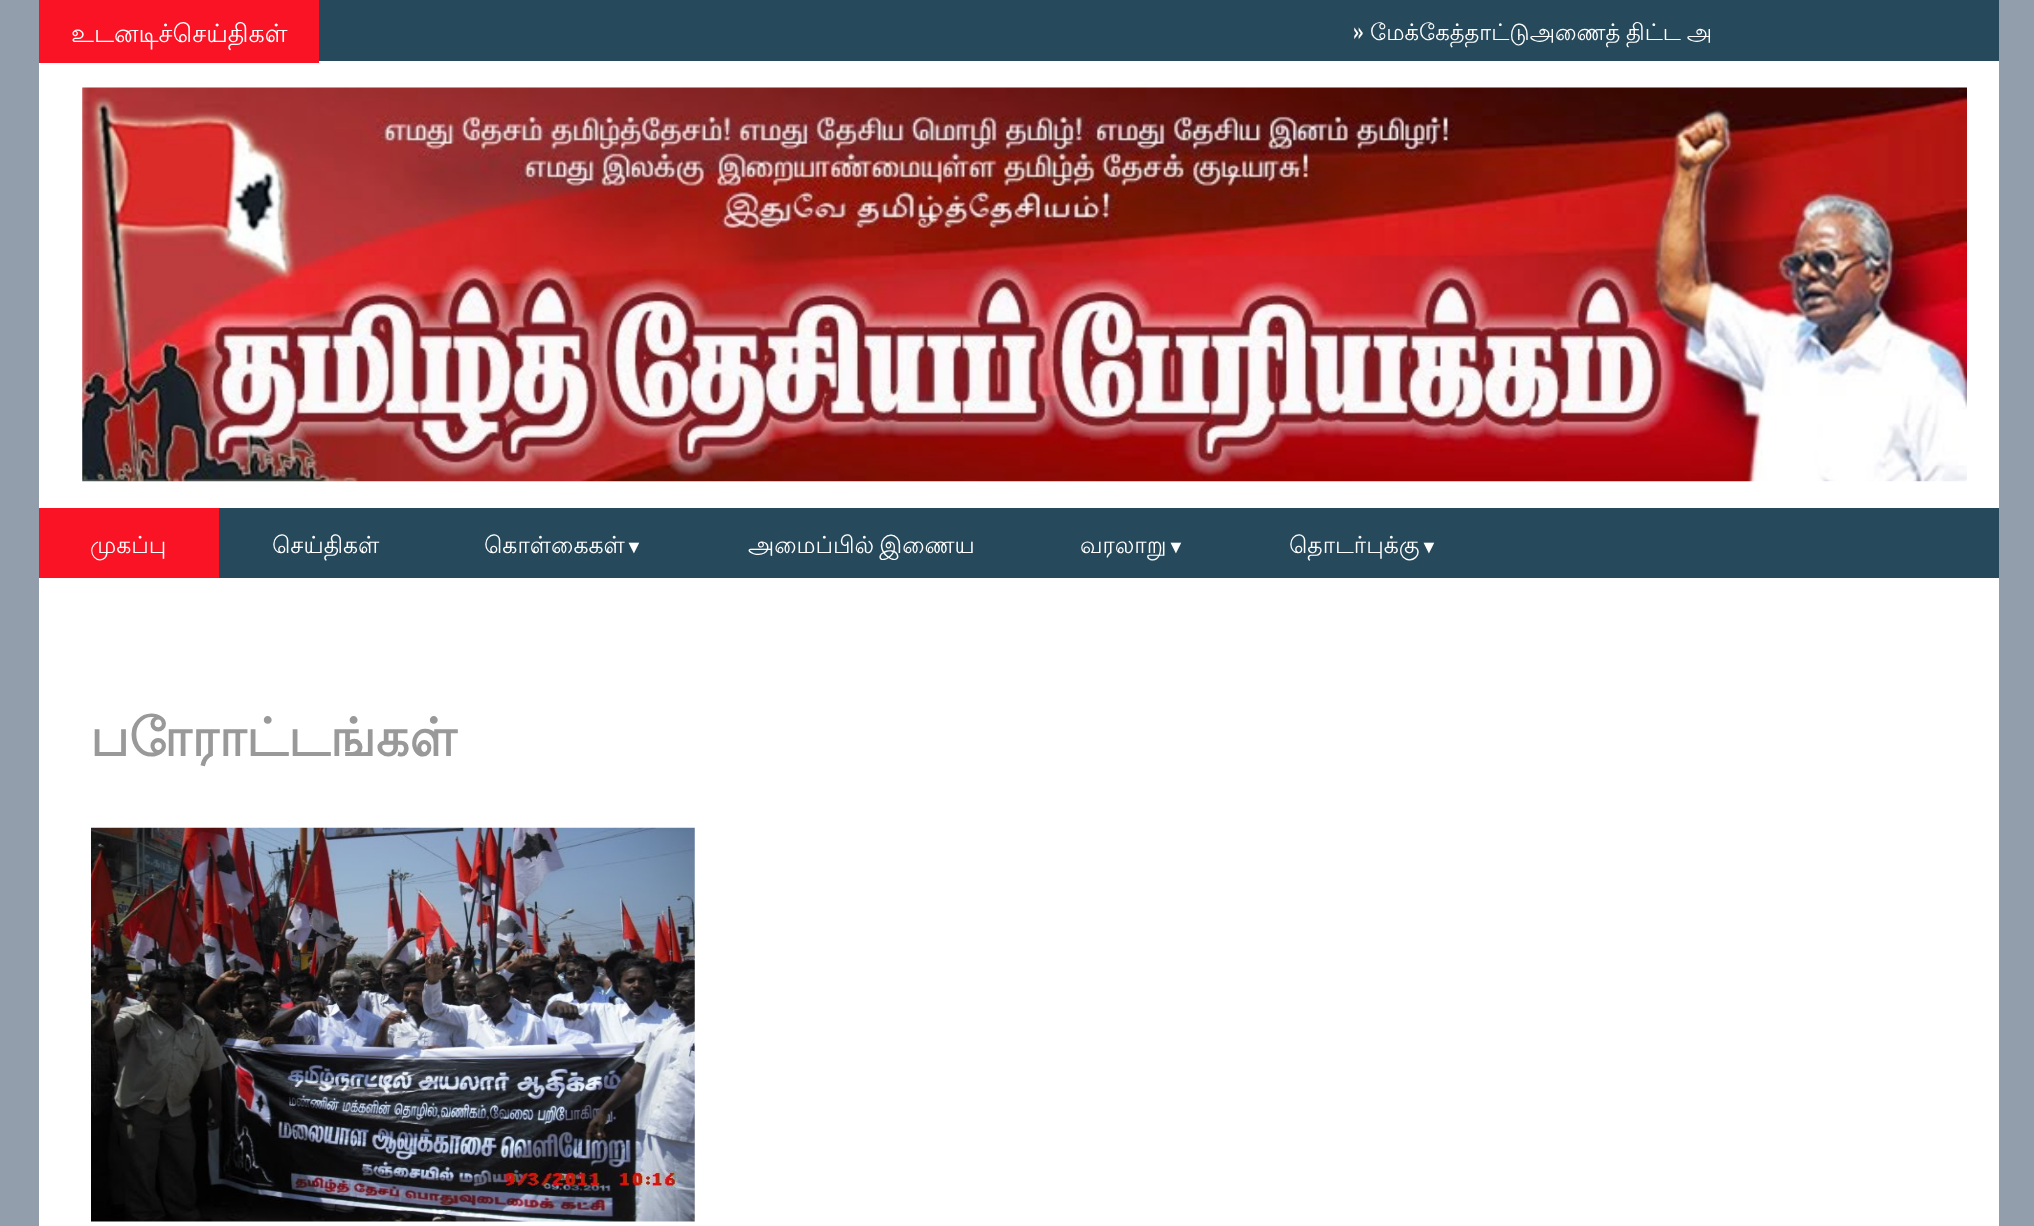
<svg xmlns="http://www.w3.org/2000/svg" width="2034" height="1226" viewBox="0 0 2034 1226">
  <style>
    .t1 { font: 25.25px Lohit Tamil; fill: #fff; }
    .t2 { font: 22.75px Oswald; fill: #fff; }
    .t3 { font: 22.75px Lohit Tamil; fill: #fff; }
    .t4 { font: 23.6px Lohit Tamil; fill: #fff; }
    .t5 { font: 18px Liberation Serif; fill: #fff; }
    .t6 { font: bold 52.5px Lohit Tamil; fill: #999; }
  </style>
  <rect width="100%" height="100%" fill="#939ead"/>
  <rect x="39" y="61" width="1960" height="447" fill="#fff"/>
  <rect x="319" y="0" width="1680" height="61" fill="#26495b"/>
  <rect x="39" y="0" width="280" height="63" fill="#fa1225"/>
  <text x="71" y="42" class="t1">உடனடிச்செய்திகள்</text>
  <text x="1353" y="40" class="t2">»</text>
  <text x="1370" y="40" word-spacing="-1" class="t3">மேக்கேத்தாட்டுஅணைத் திட்ட அ</text>
  <image x="82" y="87" width="1885" height="395" href="images/1.png"/>
  <rect x="219" y="508" width="1780" height="70" fill="#26495b"/>
  <rect x="39" y="508" width="180" height="70" fill="#fa1225"/>
  <text x="90" y="553" class="t4">முகப்பு</text>
  <text x="272" y="553" class="t4">செய்திகள்</text>
  <text x="484" y="553" class="t4">கொள்கைகள்</text>
  <text x="625" y="553" class="t5">▼</text>
  <text x="748" y="553" word-spacing="-2" class="t4">அமைப்பில் இணைய</text>
  <text x="1080" y="553" class="t4">வரலாறு</text>
  <text x="1167" y="553" class="t5">▼</text>
  <text x="1289" y="553" class="t4">தொடர்புக்கு</text>
  <text x="1420" y="553" class="t5">▼</text>
  <rect x="39" y="578" width="1960" height="648" fill="#fff"/>
  <text x="90" y="756" class="t6">போராட்டங்கள்</text>
  <image x="91" y="827" width="604" height="395" href="images/2.png"/>
</svg>
